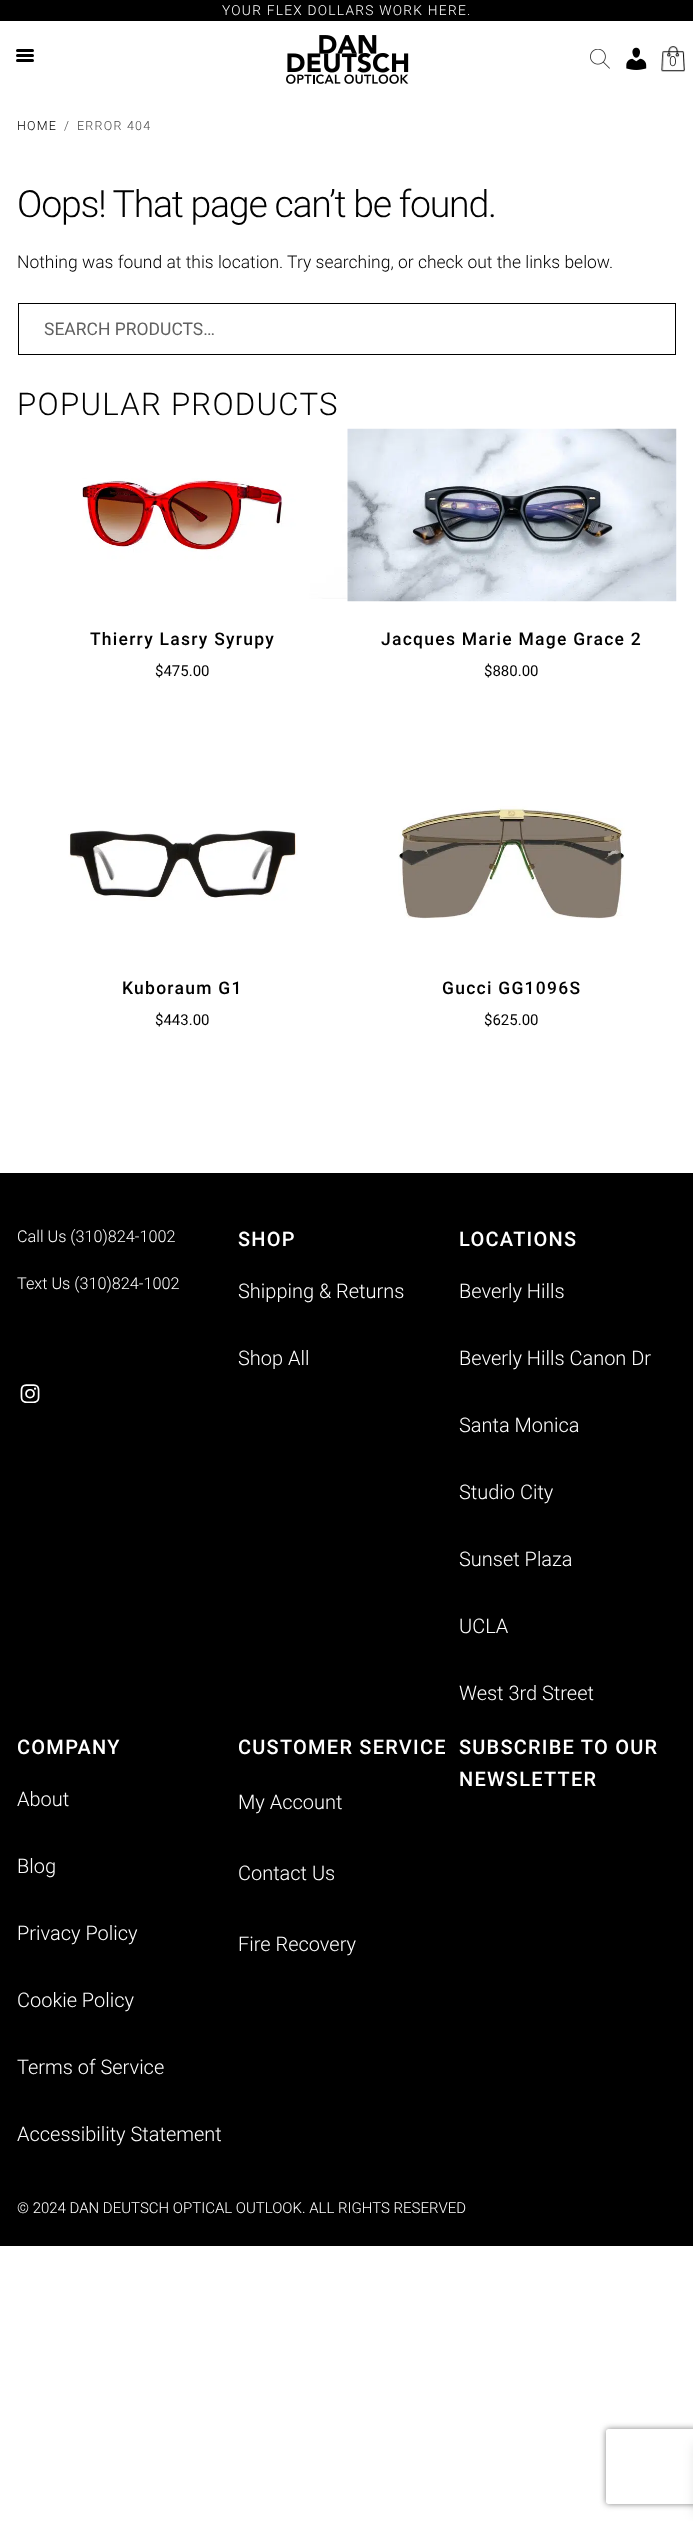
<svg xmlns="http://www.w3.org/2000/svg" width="693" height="2521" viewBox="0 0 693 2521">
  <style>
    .t1 { font: 300 13.75px Roboto; letter-spacing: 1.25px; fill: #fff; }
    .t2 { font: 300 13.75px Roboto; fill: #000; }
    .t3 { font: 300 12.5px Roboto; letter-spacing: 1.25px; fill: #000; }
    .t4 { font: 300 12.5px Roboto; letter-spacing: 1.25px; fill: #484848; }
    .t5 { font: 300 37.5px Roboto; letter-spacing: -1.25px; fill: #000; }
    .t6 { font: 300 17.5px Roboto; fill: #000; }
    .t7 { font: 17.5px Roboto; fill: #616161; }
    .t8 { font: 300 31.25px Roboto; letter-spacing: 1.25px; fill: #000; }
    .t9 { font: 500 17.5px Roboto; letter-spacing: 1.25px; fill: #000; }
    .t10 { font: 15px Roboto; fill: #000; }
    .t11 { font: 300 16.25px Roboto; fill: #fff; }
    .t12 { font: 500 20px Roboto; letter-spacing: 1.25px; fill: #fff; }
    .t13 { font: 300 20px Roboto; fill: #fff; }
    .t14 { font: 300 15px Roboto; fill: #fff; }
  </style>
  <defs>
    <clipPath id="clip1"><path d="M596 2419H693V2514H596ZM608.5 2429H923.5C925 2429 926 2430 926 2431.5V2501.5C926 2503 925 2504 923.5 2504H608.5C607 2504 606 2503 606 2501.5V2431.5C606 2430 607 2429 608.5 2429Z" clip-rule="evenodd"/></clipPath>
  </defs>
  <rect width="100%" height="100%" fill="#fff"/>
  <rect x="0" y="0" width="693" height="21" fill="#000"/>
  <text x="222" y="15" class="t1">YOUR FLEX DOLLARS WORK HERE.</text>
  <rect x="16" y="49" width="18" height="3" rx="1.5" fill="#000"/>
  <rect x="16" y="54" width="18" height="3" rx="1.5" fill="#000"/>
  <rect x="16" y="59" width="18" height="3" rx="1.5" fill="#000"/>
  <image x="286" y="35" width="123" height="49" href="images/1.png"/>
  <image x="590" y="49" width="20" height="20" href="images/2.png"/>
  <image x="626" y="47" width="21" height="23" href="images/3.png"/>
  <text x="669" y="66" class="t2">0</text>
  <image x="661" y="46" width="24" height="26" href="images/4.png"/>
  <text x="17" y="130" class="t3">HOME</text>
  <text x="64" y="130" class="t4">/</text>
  <text x="77" y="130" class="t4">ERROR 404</text>
  <text x="17" y="217" class="t5">Oops! That page can’t be found.</text>
  <text x="17" y="268" class="t6">Nothing was found at this location. Try searching, or check out the links below.</text>
  <rect x="18.5" y="303.5" width="657" height="51" fill="none" stroke="#000"/>
  <text x="44" y="335" class="t7">SEARCH PRODUCTS…</text>
  <text x="17" y="415" class="t8">POPULAR PRODUCTS</text>
  <image x="82" y="478" width="265" height="121" href="images/5.png"/>
  <text x="90" y="645" class="t9">Thierry Lasry Syrupy</text>
  <text x="155" y="676" class="t10">$475.00</text>
  <image x="347" y="428" width="330" height="174" href="images/6.png"/>
  <text x="381" y="645" class="t9">Jacques Marie Mage Grace 2</text>
  <text x="484" y="676" class="t10">$880.00</text>
  <image x="68" y="830" width="230" height="71" href="images/7.png"/>
  <text x="122" y="994" class="t9">Kuboraum G1</text>
  <text x="155" y="1025" class="t10">$443.00</text>
  <image x="398" y="806" width="227" height="113" href="images/8.png"/>
  <text x="442" y="994" class="t9">Gucci GG1096S</text>
  <text x="484" y="1025" class="t10">$625.00</text>
  <rect x="0" y="1173" width="693" height="1073" fill="#000"/>
  <text x="17" y="1242" class="t11">Call Us (310)824-1002</text>
  <text x="17" y="1289" class="t11">Text Us (310)824-1002</text>
  <image x="20" y="1384" width="20" height="19" href="images/9.png"/>
  <text x="238" y="1246" class="t12">SHOP</text>
  <text x="238" y="1298" class="t13">Shipping &amp; Returns</text>
  <text x="238" y="1365" class="t13">Shop All</text>
  <text x="459" y="1246" class="t12">LOCATIONS</text>
  <text x="459" y="1298" class="t13">Beverly Hills</text>
  <text x="459" y="1365" class="t13">Beverly Hills Canon Dr</text>
  <text x="459" y="1432" class="t13">Santa Monica</text>
  <text x="459" y="1499" class="t13">Studio City</text>
  <text x="459" y="1566" class="t13">Sunset Plaza</text>
  <text x="459" y="1633" class="t13">UCLA</text>
  <text x="459" y="1700" class="t13">West 3rd Street</text>
  <text x="17" y="1754" class="t12">COMPANY</text>
  <text x="17" y="1806" class="t13">About</text>
  <text x="17" y="1873" class="t13">Blog</text>
  <text x="17" y="1940" class="t13">Privacy Policy</text>
  <text x="17" y="2007" class="t13">Cookie Policy</text>
  <text x="17" y="2074" class="t13">Terms of Service</text>
  <text x="17" y="2141" class="t13">Accessibility Statement</text>
  <text x="238" y="1754" class="t12">CUSTOMER SERVICE</text>
  <text x="238" y="1809" class="t13">My Account</text>
  <text x="238" y="1880" class="t13">Contact Us</text>
  <text x="238" y="1951" class="t13">Fire Recovery</text>
  <text x="459" y="1754" class="t12">SUBSCRIBE TO OUR</text>
  <text x="459" y="1786" class="t12">NEWSLETTER</text>
  <text x="17" y="2213" class="t14">© 2024 DAN DEUTSCH OPTICAL OUTLOOK. ALL RIGHTS RESERVED</text>
  <g clip-path="url(#clip1)">
    <rect x="606" y="2429" width="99" height="75" rx="2.5" fill="#808080" filter="blur(3px)"/>
  </g>
  <rect x="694" y="2444" width="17" height="71" fill="#0000001a" filter="blur(6px)"/>
</svg>
